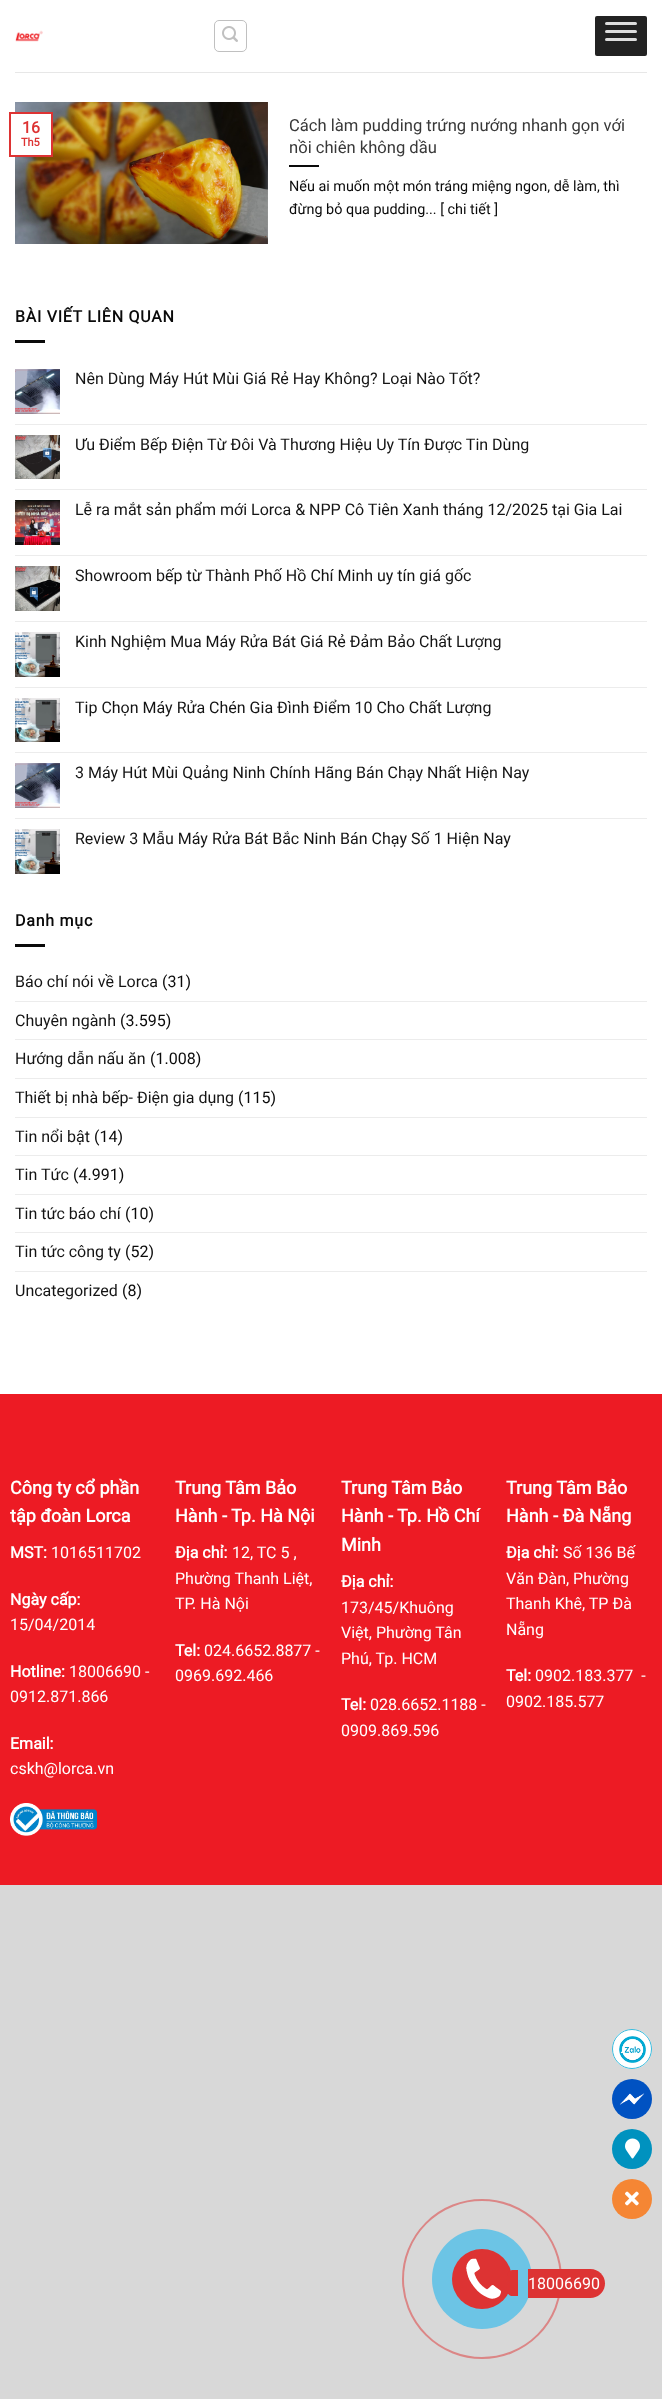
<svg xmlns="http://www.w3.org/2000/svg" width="662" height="2399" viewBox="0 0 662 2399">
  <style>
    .t1 { font: 16.6px Roboto; fill: #383838; }
    .t2 { font: 14.4px Roboto; fill: #0a0a0a; }
    .t3 { font: bold 16px Roboto; fill: #d33; }
    .t4 { font: bold 11px Roboto; fill: #d33; }
    .t5 { font: bold 16px Roboto; letter-spacing: 0.75px; fill: #0a0a0a; }
    .t6 { font: 16px Roboto; fill: #141414; }
    .t7 { font: 16px Roboto; fill: #0a0a0a; }
    .t8 { font: bold 18px Roboto; fill: #fff; }
    .t9 { font: bold 16px Roboto; fill: #fff; }
    .t10 { font: 16px Roboto; fill: #fff; }
  </style>
  <rect width="100%" height="100%" fill="#d8d8d8"/>
  <rect x="0" y="0" width="662" height="1394" fill="#fff"/>
  <image x="15" y="30" width="28" height="12" href="images/1.png"/>
  <rect x="214.5" y="20.5" width="32" height="31" rx="4.5" fill="none" stroke="#c0c0c0"/>
  <image x="222" y="26" width="16" height="16" href="images/2.png"/>
  <rect x="595" y="16" width="52" height="40" rx="2" fill="#222"/>
  <rect x="605" y="22" width="32" height="3" rx="1.5" fill="#ddd"/>
  <rect x="605" y="30" width="32" height="3" rx="1.5" fill="#ddd"/>
  <rect x="605" y="38" width="32" height="3" rx="1.5" fill="#ddd"/>
  <rect x="15" y="72" width="632" height="1" fill="#e7e7e7"/>
  <image x="15" y="102" width="253" height="142" href="images/3.png"/>
  <text x="289" y="131" class="t1">Cách làm pudding trứng nướng nhanh gọn với</text>
  <text x="289" y="153" class="t1">nồi chiên không dầu</text>
  <rect x="289" y="165" width="30" height="2" fill="#0a0a0a"/>
  <text x="289" y="191" class="t2">Nếu ai muốn một món tráng miệng ngon, dễ làm, thì</text>
  <text x="289" y="214" class="t2">đừng bỏ qua pudding... [ chi tiết ]</text>
  <rect x="15" y="114" width="36" height="41" fill="#fff"/>
  <rect x="10" y="113" width="42" height="43" fill="none" stroke="#d33" stroke-width="2"/>
  <text x="22" y="133" class="t3">16</text>
  <text x="21" y="146" class="t4">Th5</text>
  <text x="15" y="322" class="t5">BÀI VIẾT LIÊN QUAN</text>
  <rect x="15" y="340" width="30" height="3" fill="#0a0a0a"/>
  <image x="15" y="369" width="45" height="45" href="images/4.png"/>
  <text x="75" y="384" class="t6">Nên Dùng Máy Hút Mùi Giá Rẻ Hay Không? Loại Nào Tốt?</text>
  <rect x="15" y="424" width="632" height="1" fill="#ececec"/>
  <image x="15" y="435" width="45" height="44" href="images/5.png"/>
  <text x="75" y="450" class="t6">Ưu Điểm Bếp Điện Từ Đôi Và Thương Hiệu Uy Tín Được Tin Dùng</text>
  <rect x="15" y="489" width="632" height="1" fill="#ececec"/>
  <image x="15" y="500" width="45" height="45" href="images/6.png"/>
  <text x="75" y="515" class="t6">Lễ ra mắt sản phẩm mới Lorca &amp; NPP Cô Tiên Xanh tháng 12/2025 tại Gia Lai</text>
  <rect x="15" y="555" width="632" height="1" fill="#ececec"/>
  <image x="15" y="566" width="45" height="45" href="images/7.png"/>
  <text x="75" y="581" class="t6">Showroom bếp từ Thành Phố Hồ Chí Minh uy tín giá gốc</text>
  <rect x="15" y="621" width="632" height="1" fill="#ececec"/>
  <image x="15" y="632" width="45" height="45" href="images/8.png"/>
  <text x="75" y="647" class="t6">Kinh Nghiệm Mua Máy Rửa Bát Giá Rẻ Đảm Bảo Chất Lượng</text>
  <rect x="15" y="687" width="632" height="1" fill="#ececec"/>
  <image x="15" y="698" width="45" height="44" href="images/9.png"/>
  <text x="75" y="713" class="t6">Tip Chọn Máy Rửa Chén Gia Đình Điểm 10 Cho Chất Lượng</text>
  <rect x="15" y="752" width="632" height="1" fill="#ececec"/>
  <image x="15" y="763" width="45" height="45" href="images/4.png"/>
  <text x="75" y="778" class="t6">3 Máy Hút Mùi Quảng Ninh Chính Hãng Bán Chạy Nhất Hiện Nay</text>
  <rect x="15" y="818" width="632" height="1" fill="#ececec"/>
  <image x="15" y="829" width="45" height="45" href="images/8.png"/>
  <text x="75" y="844" class="t6">Review 3 Mẫu Máy Rửa Bát Bắc Ninh Bán Chạy Số 1 Hiện Nay</text>
  <text x="15" y="926" class="t5">Danh mục</text>
  <rect x="15" y="944" width="30" height="3" fill="#0a0a0a"/>
  <text x="15" y="987" class="t6">Báo chí nói về Lorca</text>
  <text x="162" y="987" class="t7">(31)</text>
  <rect x="15" y="1001" width="632" height="1" fill="#ececec"/>
  <text x="15" y="1026" class="t6">Chuyên ngành</text>
  <text x="120" y="1026" class="t7">(3.595)</text>
  <rect x="15" y="1039" width="632" height="1" fill="#ececec"/>
  <text x="15" y="1064" class="t6">Hướng dẫn nấu ăn</text>
  <text x="150" y="1064" class="t7">(1.008)</text>
  <rect x="15" y="1078" width="632" height="1" fill="#ececec"/>
  <text x="15" y="1103" class="t6">Thiết bị nhà bếp- Điện gia dụng</text>
  <text x="238" y="1103" class="t7">(115)</text>
  <rect x="15" y="1117" width="632" height="1" fill="#ececec"/>
  <text x="15" y="1142" class="t6">Tin nổi bật</text>
  <text x="94" y="1142" class="t7">(14)</text>
  <rect x="15" y="1155" width="632" height="1" fill="#ececec"/>
  <text x="15" y="1180" class="t6">Tin Tức</text>
  <text x="73" y="1180" class="t7">(4.991)</text>
  <rect x="15" y="1194" width="632" height="1" fill="#ececec"/>
  <text x="15" y="1219" class="t6">Tin tức báo chí</text>
  <text x="125" y="1219" class="t7">(10)</text>
  <rect x="15" y="1232" width="632" height="1" fill="#ececec"/>
  <text x="15" y="1257" class="t6">Tin tức công ty</text>
  <text x="125" y="1257" class="t7">(52)</text>
  <rect x="15" y="1271" width="632" height="1" fill="#ececec"/>
  <text x="15" y="1296" class="t6">Uncategorized</text>
  <text x="122" y="1296" class="t7">(8)</text>
  <rect x="0" y="1394" width="662" height="491" fill="#ed1b24"/>
  <text x="10" y="1494" class="t8">Công ty cổ phần</text>
  <text x="10" y="1522" class="t8">tập đoàn Lorca</text>
  <text x="10" y="1558" class="t9">MST:</text>
  <text x="51" y="1558" class="t10">1016511702</text>
  <text x="10" y="1605" class="t9">Ngày cấp:</text>
  <text x="10" y="1630" class="t10">15/04/2014</text>
  <text x="10" y="1677" class="t9">Hotline:</text>
  <text x="69" y="1677" class="t10">18006690 -</text>
  <text x="10" y="1702" class="t10">0912.871.866</text>
  <text x="10" y="1749" class="t9">Email:</text>
  <text x="10" y="1774" class="t10">cskh@lorca.vn</text>
  <image x="10" y="1803" width="87" height="33" href="images/10.png"/>
  <text x="175" y="1494" class="t8">Trung Tâm Bảo</text>
  <text x="175" y="1522" class="t8">Hành - Tp. Hà Nội</text>
  <text x="175" y="1558" class="t9">Địa chỉ:</text>
  <text x="232" y="1558" class="t10">12, TC 5 ,</text>
  <text x="175" y="1584" class="t10">Phường Thanh Liệt,</text>
  <text x="175" y="1609" class="t10">TP. Hà Nội</text>
  <text x="175" y="1656" class="t9">Tel:</text>
  <text x="204" y="1656" class="t10">024.6652.8877 -</text>
  <text x="175" y="1681" class="t10">0969.692.466</text>
  <text x="341" y="1494" class="t8">Trung Tâm Bảo</text>
  <text x="341" y="1522" class="t8">Hành - Tp. Hồ Chí</text>
  <text x="341" y="1551" class="t8">Minh</text>
  <text x="341" y="1587" class="t9">Địa chỉ:</text>
  <text x="341" y="1613" class="t10">173/45/Khuông</text>
  <text x="341" y="1638" class="t10">Việt, Phường Tân</text>
  <text x="341" y="1664" class="t10">Phú, Tp. HCM</text>
  <text x="341" y="1710" class="t9">Tel:</text>
  <text x="370" y="1710" class="t10">028.6652.1188 -</text>
  <text x="341" y="1736" class="t10">0909.869.596</text>
  <text x="506" y="1494" class="t8">Trung Tâm Bảo</text>
  <text x="506" y="1522" class="t8">Hành - Đà Nẵng</text>
  <text x="506" y="1558" class="t9">Địa chỉ:</text>
  <text x="563" y="1558" class="t10">Số 136 Bế</text>
  <text x="506" y="1584" class="t10">Văn Đàn, Phường</text>
  <text x="506" y="1609" class="t10">Thanh Khê, TP Đà</text>
  <text x="506" y="1635" class="t10">Nẵng</text>
  <text x="506" y="1681" class="t9">Tel:</text>
  <text x="535" y="1681" class="t10" xml:space="preserve">0902.183.377  -</text>
  <text x="506" y="1707" class="t10">0902.185.577</text>
  <circle cx="632" cy="2049" r="20" fill="#fff"/>
  <image x="619" y="2036" width="27" height="27" href="images/11.png"/>
  <circle cx="632" cy="2049" r="19.5" fill="none" stroke="#38b9db"/>
  <circle cx="632" cy="2099" r="20" fill="#0052c2"/>
  <image x="619" y="2093" width="26" height="12" href="images/12.png"/>
  <circle cx="632" cy="2149" r="20" fill="#0092bf"/>
  <image x="625" y="2138" width="15" height="21" href="images/13.png"/>
  <circle cx="632" cy="2199" r="20" fill="#f58634"/>
  <image x="625" y="2191" width="14" height="15" href="images/14.png"/>
  <circle cx="482" cy="2279" r="79" fill="none" stroke="#db8686" stroke-width="2"/>
  <circle cx="482" cy="2279" r="50" fill="#6cc4e5"/>
  <circle cx="482" cy="2279" r="30" fill="#d33"/>
  <image x="466" y="2258" width="35" height="41" href="images/15.png"/>
  <path d="M528 2269H590.5C598.5 2269 605 2275.5 605 2283.5C605 2291.5 598.5 2298 590.5 2298H528Z" fill="#d33"/>
  <text x="528" y="2289" class="t10">18006690</text>
  <path d="M512.5 2270H518V2296H512.5C509.5 2296 507 2293.5 507 2290.5V2275.5C507 2272.5 509.5 2270 512.5 2270Z" fill="#d33"/>
</svg>
